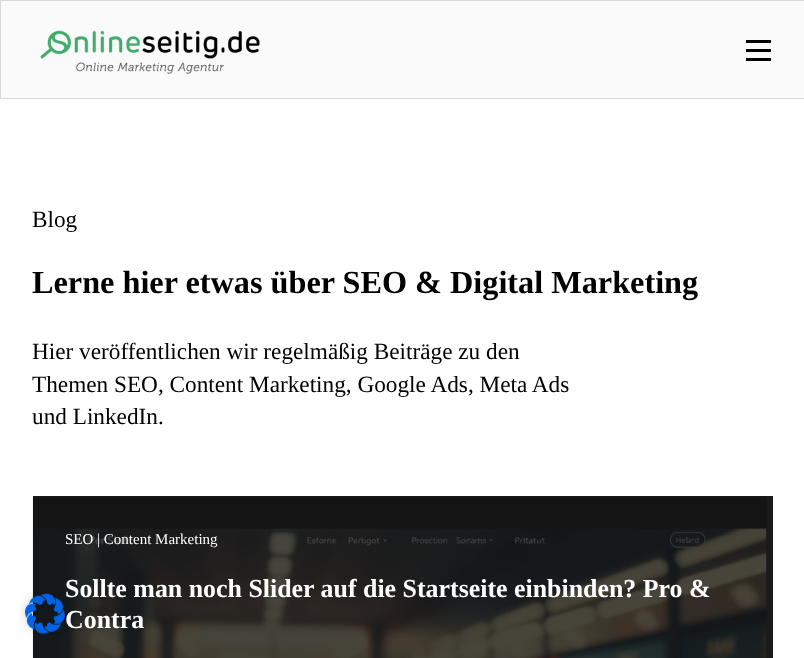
<svg xmlns="http://www.w3.org/2000/svg" width="804" height="658" viewBox="0 0 804 658">
  <style>
    .t1 { font: 23.25px Liberation Serif; fill: #000; }
    .t2 { font: bold 32.25px Liberation Serif; fill: #000; }
    .t3 { font: 15px Liberation Serif; fill: #fff; }
    .t4 { font: bold 25.9px Liberation Serif; fill: #fff; }
  </style>
  <rect width="100%" height="100%" fill="#fff"/>
  <rect x="0.5" y="0.5" width="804" height="98" fill="#fafafa" stroke="#d9d9d9"/>
  <image x="40" y="30" width="220" height="44" href="images/1.png"/>
  <rect x="746" y="40" width="25" height="3" fill="#000"/>
  <rect x="746" y="49" width="25" height="3" fill="#000"/>
  <rect x="746" y="58" width="25" height="3" fill="#000"/>
  <text x="32" y="227" class="t1">Blog</text>
  <text x="32" y="293" class="t2">Lerne hier etwas über SEO &amp; Digital Marketing</text>
  <text x="32" y="359" class="t1">Hier veröffentlichen wir regelmäßig Beiträge zu den</text>
  <text x="32" y="392" class="t1">Themen SEO, Content Marketing, Google Ads, Meta Ads</text>
  <text x="32" y="424" class="t1">und LinkedIn.</text>
  <rect x="33" y="496" width="740" height="162" fill="#1a1a1a"/>
  <image x="32" y="496" width="735" height="162" href="images/2.png"/>
  <text x="65" y="544" class="t3">SEO | Content Marketing</text>
  <text x="65" y="597" class="t4">Sollte man noch Slider auf die Startseite einbinden? Pro &amp;</text>
  <text x="65" y="628" class="t4">Contra</text>
  <image x="20" y="592" width="50" height="43" href="images/3.png"/>
</svg>
